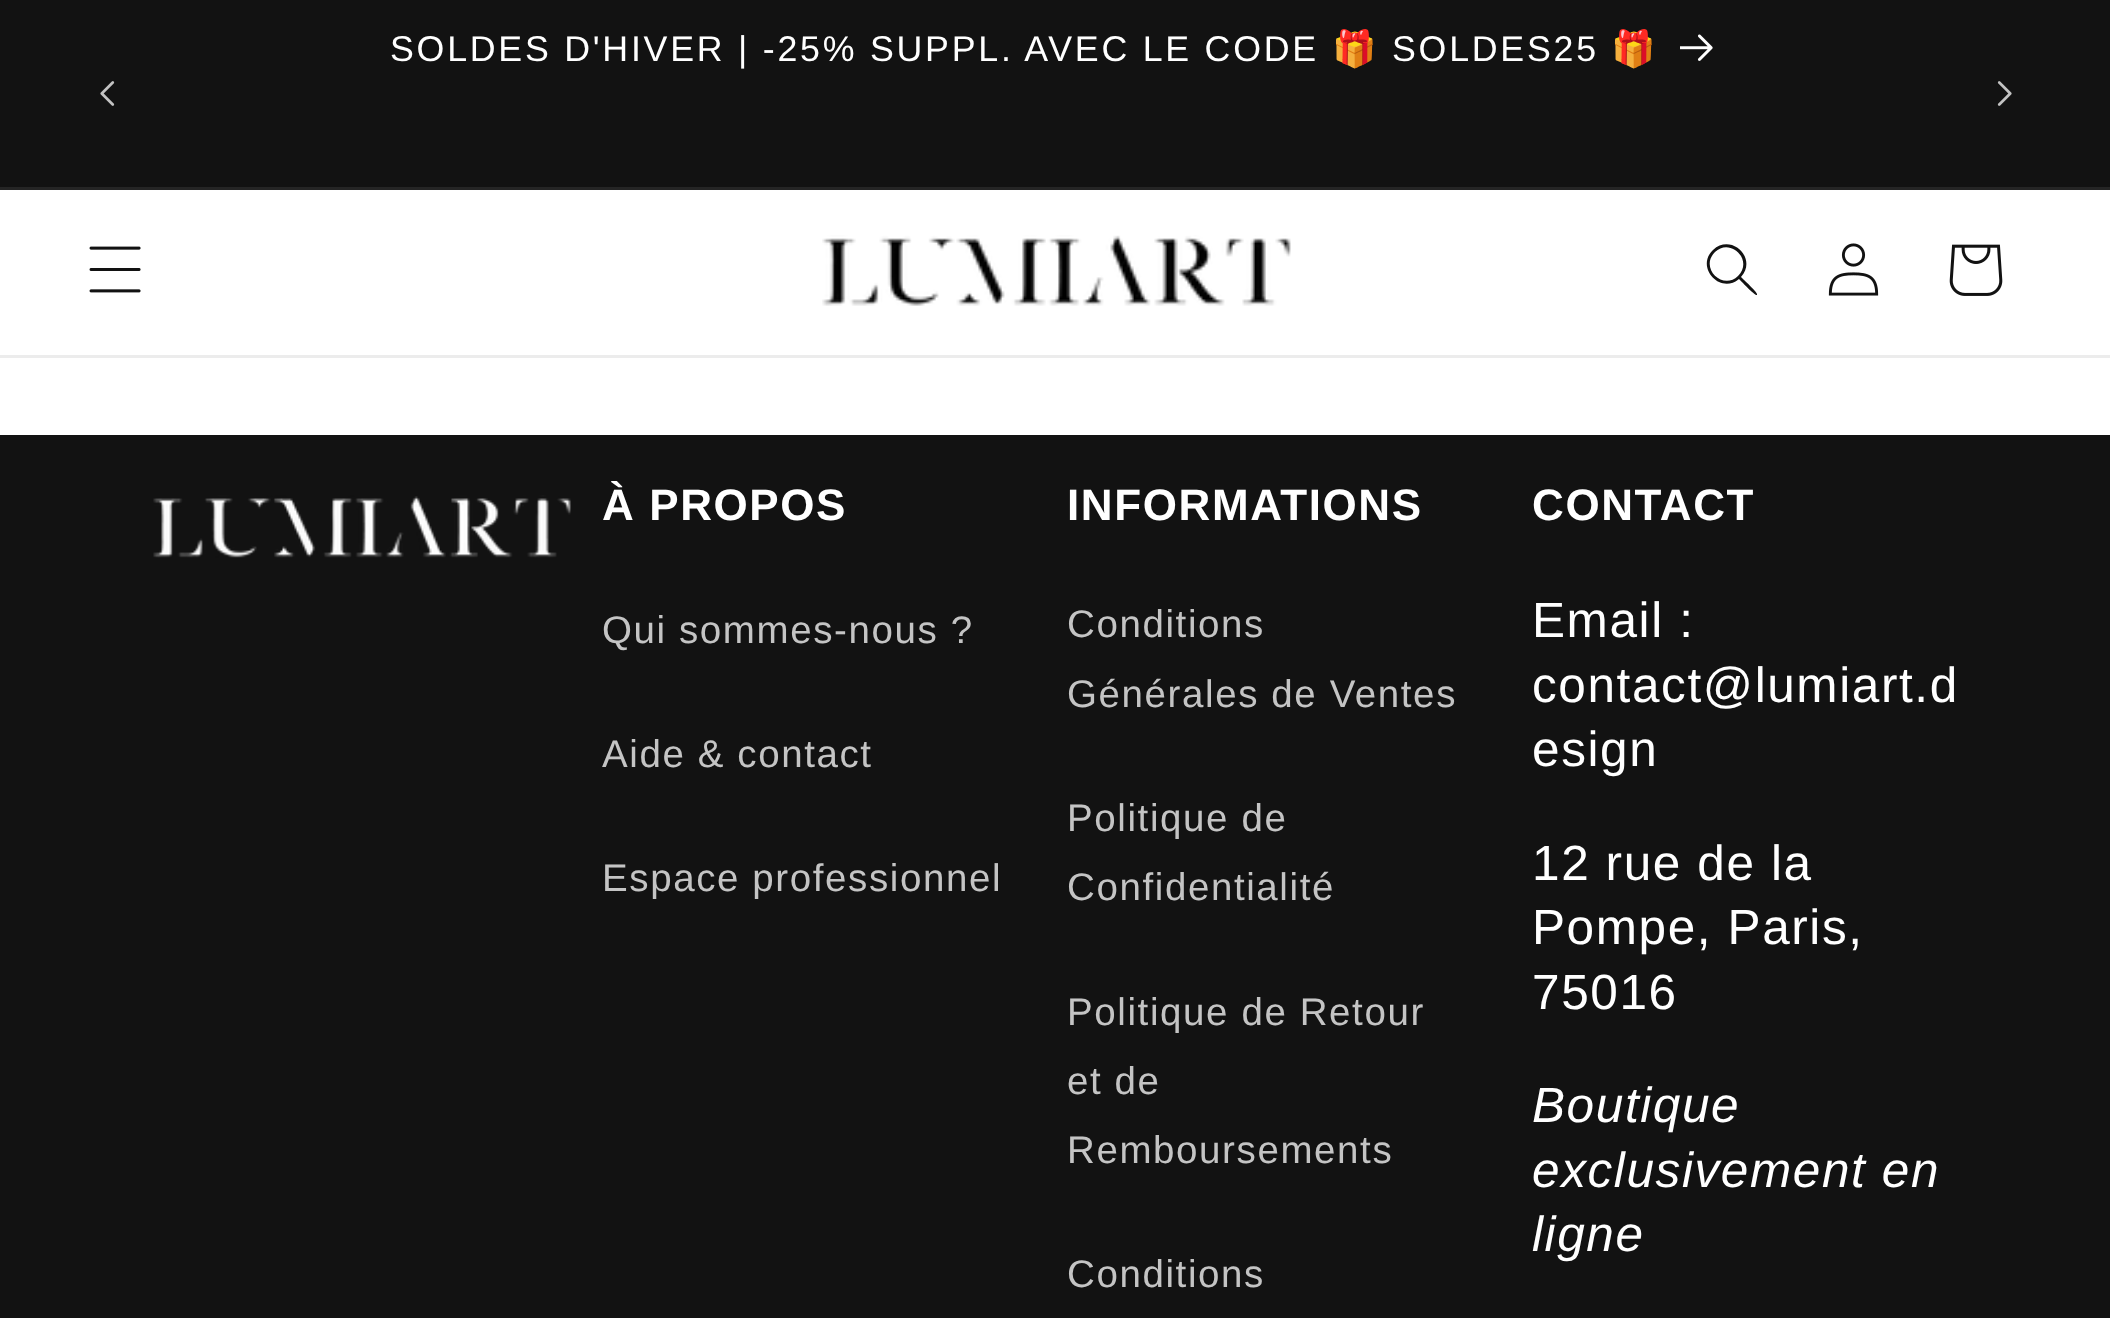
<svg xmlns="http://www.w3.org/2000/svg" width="2110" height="1318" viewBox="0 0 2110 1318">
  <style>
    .t1 { font: 35.75px Liberation Sans; letter-spacing: 2.75px; fill: #fff; }
    .t2 { font: 35.75px Noto Color Emoji; letter-spacing: 2.75px; fill: #fff; }
    .t3 { font: bold 44px Liberation Sans; letter-spacing: 1.6px; fill: #fff; }
    .t4 { font: 38.5px Liberation Sans; letter-spacing: 1.6px; fill: #c4c4c4; }
    .t5 { font: 49.5px Liberation Sans; letter-spacing: 1.6px; fill: #fff; }
    .t6 { font: italic 49.5px Liberation Sans; letter-spacing: 1.6px; fill: #fff; }
  </style>
  <rect width="100%" height="100%" fill="#fff"/>
  <rect x="0" y="0" width="2110" height="187" fill="#121212"/>
  <rect x="0" y="187" width="2110" height="3" fill="#252525"/>
  <text x="390" y="61" class="t1">SOLDES D'HIVER | -25% SUPPL. AVEC LE CODE</text>
  <text x="1332" y="61" class="t2">🎁</text>
  <text x="1392" y="61" class="t1">SOLDES25</text>
  <text x="1611" y="61" class="t2">🎁</text>
  <image x="1680" y="34" width="33" height="27" href="images/1.png"/>
  <image x="100" y="81" width="15" height="25" href="images/2.png"/>
  <image x="1997" y="81" width="15" height="25" href="images/3.png"/>
  <rect x="0" y="355" width="2110" height="3" fill="#ececec"/>
  <image x="89" y="246" width="52" height="47" href="images/4.png"/>
  <image x="822" y="235" width="469" height="71" href="images/5.png"/>
  <path d="M1738 276C1723 291 1699 268 1715 252C1730 237 1754 260 1738 276ZM1739 279C1720 295 1695 267 1713 250C1731 233 1758 258 1741 277C1743 279 1757 292 1757 294V295C1755 296 1741 281 1739 279Z" fill="#121212" fill-rule="evenodd"/>
  <image x="1828" y="243" width="51" height="53" href="images/6.png"/>
  <image x="1949" y="244" width="54" height="52" href="images/7.png"/>
  <rect x="0" y="435" width="2110" height="883" fill="#121212"/>
  <image x="153" y="495" width="418" height="63" href="images/8.png"/>
  <text x="602" y="520" class="t3">À PROPOS</text>
  <text x="602" y="643" class="t4">Qui sommes-nous ?</text>
  <text x="602" y="767" class="t4">Aide &amp; contact</text>
  <text x="602" y="891" class="t4">Espace professionnel</text>
  <text x="1067" y="520" class="t3">INFORMATIONS</text>
  <text x="1067" y="637" class="t4">Conditions</text>
  <text x="1067" y="707" class="t4">Générales de Ventes</text>
  <text x="1067" y="831" class="t4">Politique de</text>
  <text x="1067" y="900" class="t4">Confidentialité</text>
  <text x="1067" y="1025" class="t4">Politique de Retour</text>
  <text x="1067" y="1094" class="t4">et de</text>
  <text x="1067" y="1163" class="t4">Remboursements</text>
  <text x="1067" y="1287" class="t4">Conditions</text>
  <text x="1532" y="520" class="t3">CONTACT</text>
  <text x="1532" y="637" class="t5">Email :</text>
  <text x="1532" y="702" class="t5">contact@lumiart.d</text>
  <text x="1532" y="766" class="t5">esign</text>
  <text x="1532" y="880" class="t5">12 rue de la</text>
  <text x="1532" y="944" class="t5">Pompe, Paris,</text>
  <text x="1532" y="1009" class="t5">75016</text>
  <text x="1532" y="1122" class="t6">Boutique</text>
  <text x="1532" y="1187" class="t6">exclusivement en</text>
  <text x="1532" y="1251" class="t6">ligne</text>
</svg>
